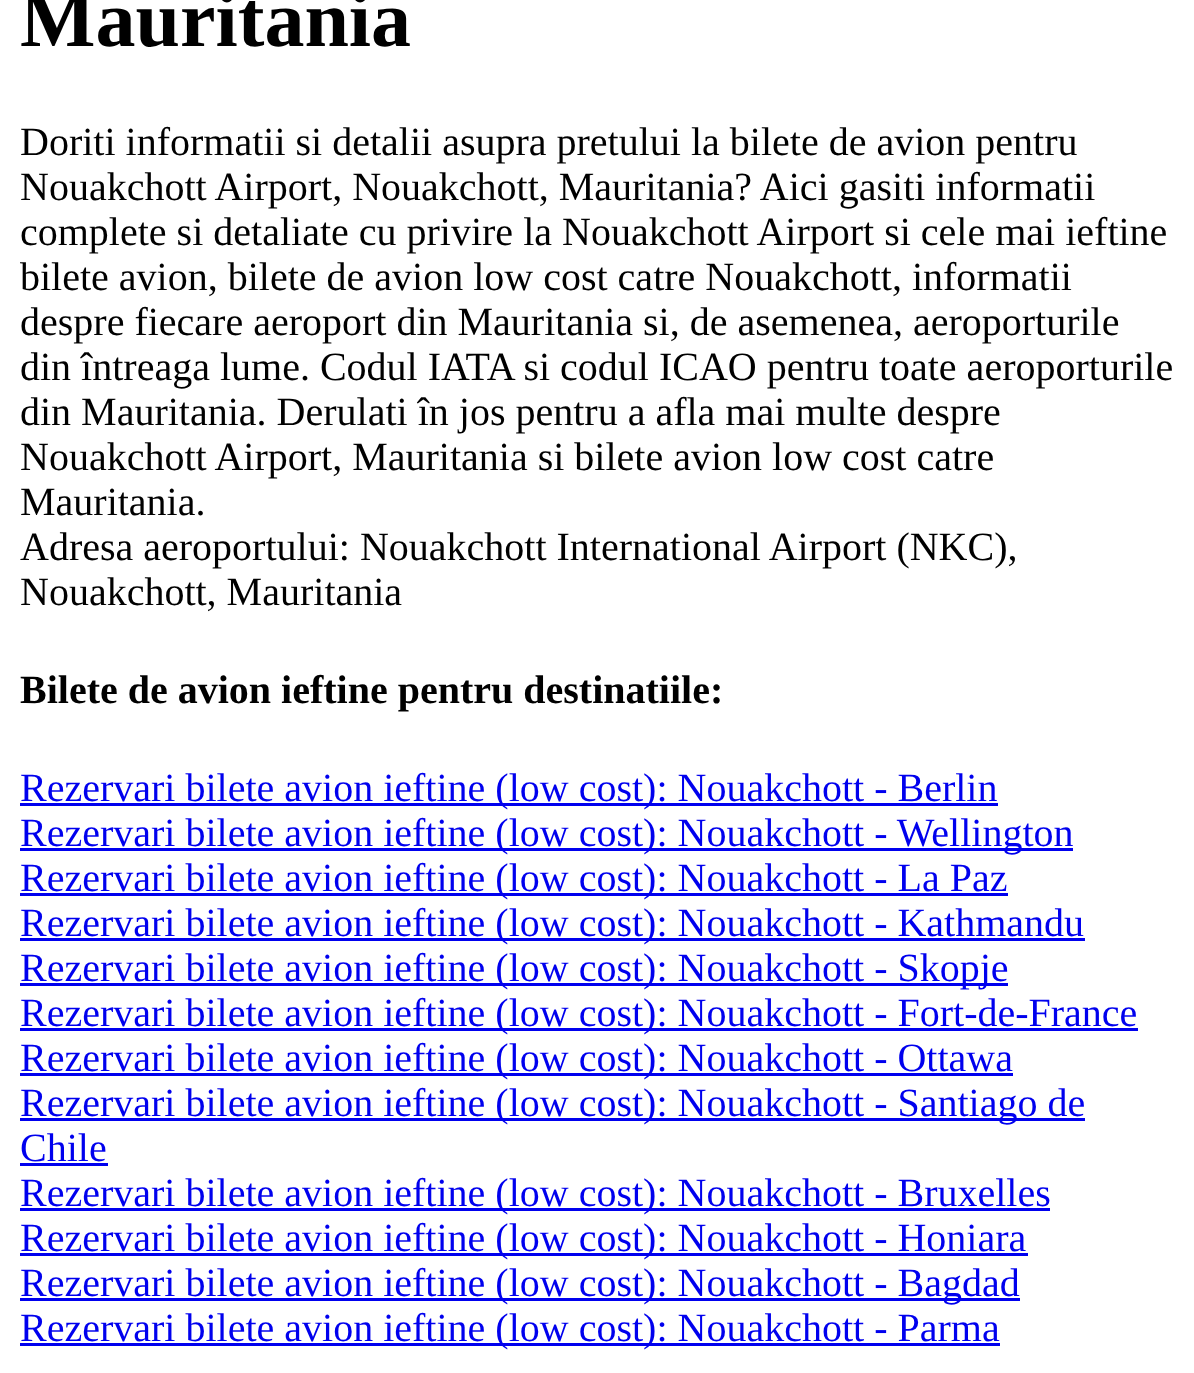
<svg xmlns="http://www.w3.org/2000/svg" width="1194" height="1373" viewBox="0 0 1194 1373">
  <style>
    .t1 { font: bold 80px Liberation Serif; fill: #000; }
    .t2 { font: 40px Liberation Serif; fill: #000; }
    .t3 { font: bold 40px Liberation Serif; fill: #000; }
    .t4 { font: 40px Liberation Serif; fill: #00e; }
  </style>
  <rect width="100%" height="100%" fill="#fff"/>
  <text x="20" y="46" class="t1">Mauritania</text>
  <text x="20" y="155" class="t2">Doriti informatii si detalii asupra pretului la bilete de avion pentru</text>
  <text x="20" y="200" class="t2">Nouakchott Airport, Nouakchott, Mauritania? Aici gasiti informatii</text>
  <text x="20" y="245" class="t2">complete si detaliate cu privire la Nouakchott Airport si cele mai ieftine</text>
  <text x="20" y="290" class="t2">bilete avion, bilete de avion low cost catre Nouakchott, informatii</text>
  <text x="20" y="335" class="t2">despre fiecare aeroport din Mauritania si, de asemenea, aeroporturile</text>
  <text x="20" y="380" class="t2">din întreaga lume. Codul IATA si codul ICAO pentru toate aeroporturile</text>
  <text x="20" y="425" class="t2">din Mauritania. Derulati în jos pentru a afla mai multe despre</text>
  <text x="20" y="470" class="t2">Nouakchott Airport, Mauritania si bilete avion low cost catre</text>
  <text x="20" y="515" class="t2">Mauritania.</text>
  <text x="20" y="560" class="t2">Adresa aeroportului: Nouakchott International Airport (NKC),</text>
  <text x="20" y="605" class="t2">Nouakchott, Mauritania</text>
  <text x="20" y="703" class="t3">Bilete de avion ieftine pentru destinatiile:</text>
  <rect x="20" y="803" width="978" height="3" fill="#00e"/>
  <text x="20" y="801" class="t4">Rezervari bilete avion ieftine (low cost): Nouakchott - Berlin</text>
  <rect x="20" y="848" width="1053" height="3" fill="#00e"/>
  <text x="20" y="846" class="t4">Rezervari bilete avion ieftine (low cost): Nouakchott - Wellington</text>
  <rect x="20" y="893" width="988" height="3" fill="#00e"/>
  <text x="20" y="891" class="t4">Rezervari bilete avion ieftine (low cost): Nouakchott - La Paz</text>
  <rect x="20" y="938" width="1065" height="3" fill="#00e"/>
  <text x="20" y="936" class="t4">Rezervari bilete avion ieftine (low cost): Nouakchott - Kathmandu</text>
  <rect x="20" y="983" width="988" height="3" fill="#00e"/>
  <text x="20" y="981" class="t4">Rezervari bilete avion ieftine (low cost): Nouakchott - Skopje</text>
  <rect x="20" y="1028" width="1118" height="3" fill="#00e"/>
  <text x="20" y="1026" class="t4">Rezervari bilete avion ieftine (low cost): Nouakchott - Fort-de-France</text>
  <rect x="20" y="1073" width="993" height="3" fill="#00e"/>
  <text x="20" y="1071" class="t4">Rezervari bilete avion ieftine (low cost): Nouakchott - Ottawa</text>
  <rect x="20" y="1118" width="1065" height="3" fill="#00e"/>
  <text x="20" y="1116" class="t4">Rezervari bilete avion ieftine (low cost): Nouakchott - Santiago de</text>
  <text x="20" y="1161" class="t4">Chile</text>
  <rect x="20" y="1163" width="88" height="3" fill="#00e"/>
  <rect x="20" y="1208" width="1030" height="3" fill="#00e"/>
  <text x="20" y="1206" class="t4">Rezervari bilete avion ieftine (low cost): Nouakchott - Bruxelles</text>
  <rect x="20" y="1253" width="1008" height="3" fill="#00e"/>
  <text x="20" y="1251" class="t4">Rezervari bilete avion ieftine (low cost): Nouakchott - Honiara</text>
  <rect x="20" y="1298" width="1000" height="3" fill="#00e"/>
  <text x="20" y="1296" class="t4">Rezervari bilete avion ieftine (low cost): Nouakchott - Bagdad</text>
  <rect x="20" y="1343" width="980" height="3" fill="#00e"/>
  <text x="20" y="1341" class="t4">Rezervari bilete avion ieftine (low cost): Nouakchott - Parma</text>
</svg>
